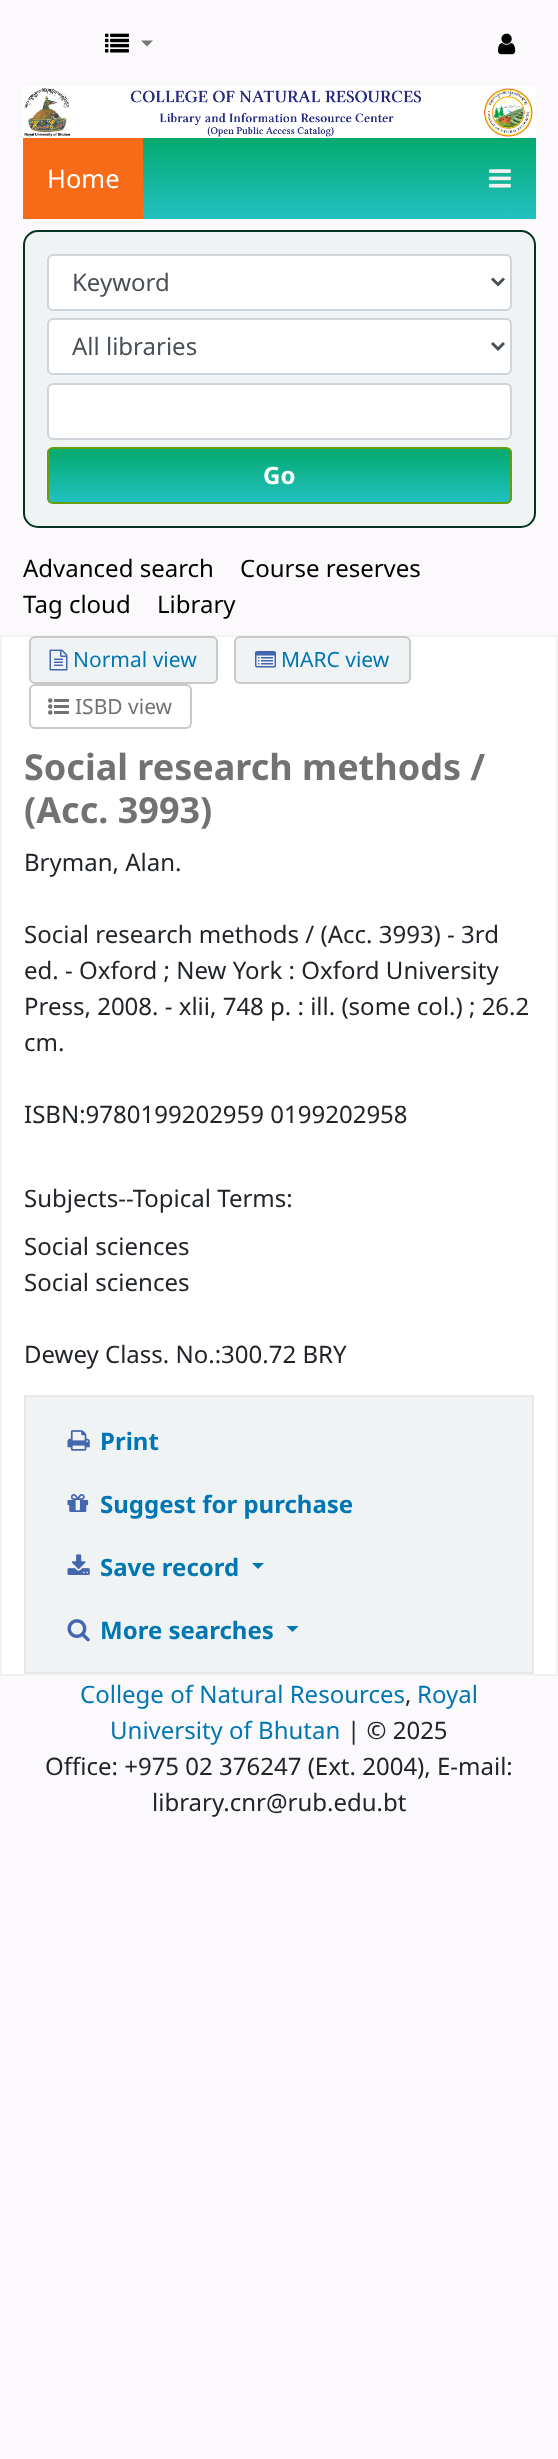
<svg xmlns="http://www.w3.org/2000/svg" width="558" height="2459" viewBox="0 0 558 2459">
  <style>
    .t1 { font: 25.5px Noto Sans; fill: #fff; }
    .t2 { font: 24px Noto Sans; fill: #495057; }
    .t3 { font: bold 24px Noto Sans; fill: #fff; }
    .t4 { font: 24px Noto Sans; fill: #000; }
    .t5 { font: 21px Noto Sans; fill: #0076b2; }
    .t6 { font: 21px Noto Sans; fill: #727272; }
    .t7 { font: bold 36px Noto Sans; fill: #727272; }
    .t8 { font: 24px Noto Sans; fill: #212529; }
    .t9 { font: bold 24px Noto Sans; fill: #0076b2; }
    .t10 { font: 24px Noto Sans; fill: #0076b2; }
  </style>
  <defs>
    <linearGradient id="g1" gradientUnits="userSpaceOnUse" x1="279" y1="219" x2="279" y2="138"><stop offset="0" stop-color="#22c1c3"/><stop offset="1" stop-color="#04aa6d"/></linearGradient>
    <clipPath id="clip1"><rect x="47" y="447" width="465" height="57" rx="6"/></clipPath>
    <linearGradient id="g2" gradientUnits="userSpaceOnUse" x1="279" y1="503" x2="279" y2="449"><stop offset="0" stop-color="#22c1c3"/><stop offset="1" stop-color="#04aa6d"/></linearGradient>
  </defs>
  <rect width="100%" height="100%" fill="#fcf9fc"/>
  <image x="105" y="33" width="24" height="20" href="images/1.png"/>
  <path d="M141 40.5H153L147 46.5Z" fill="#777"/>
  <image x="498" y="33" width="18" height="22" href="images/2.png"/>
  <rect x="23" y="87" width="513" height="51" fill="#fff"/>
  <image x="24" y="88" width="509" height="49" href="images/3.png"/>
  <rect x="143" y="138" width="393" height="81" fill="url(#g1)"/>
  <rect x="23" y="138" width="120" height="81" fill="#f76b18"/>
  <text x="47" y="188" class="t1">Home</text>
  <image x="489" y="169" width="22" height="19" href="images/4.png"/>
  <rect x="24" y="231" width="511" height="296" rx="14" fill="#f0f3f3" stroke="#033321" stroke-width="2"/>
  <rect x="48" y="255" width="463" height="55" rx="5" fill="#fff" stroke="#ced4da" stroke-width="2"/>
  <path d="M492 278.5L498 284.5L504 278.5" fill="none" stroke="#495057" stroke-width="3"/>
  <text x="72" y="291" class="t2">Keyword</text>
  <rect x="48" y="319" width="463" height="55" rx="5" fill="#fff" stroke="#ced4da" stroke-width="2"/>
  <path d="M492 343L498 349L504 343" fill="none" stroke="#495057" stroke-width="3"/>
  <text x="72" y="355" class="t2">All libraries</text>
  <rect x="48" y="384" width="463" height="55" rx="5" fill="#fff" stroke="#ced4da" stroke-width="2"/>
  <g clip-path="url(#clip1)">
    <rect x="47" y="449" width="465" height="54" fill="url(#g2)"/>
  </g>
  <rect x="48" y="448" width="463" height="55" rx="5" fill="none" stroke="#689d0d" stroke-width="2"/>
  <text x="263" y="484" class="t3">Go</text>
  <text x="23" y="577" class="t4">Advanced search</text>
  <text x="240" y="577" class="t4">Course reserves</text>
  <text x="23" y="613" class="t4">Tag cloud</text>
  <text x="157" y="613" class="t4">Library</text>
  <rect x="1" y="636" width="556" height="1039" fill="#fff" stroke="#f0f3f3" stroke-width="2"/>
  <rect x="30" y="637" width="187" height="46" rx="5" fill="#f0f3f3" stroke="#c9c9c9" stroke-width="2"/>
  <image x="49" y="649" width="19" height="22" href="images/5.png"/>
  <text x="73" y="667" class="t5">Normal view</text>
  <rect x="235" y="637" width="175" height="46" rx="5" fill="#f0f3f3" stroke="#c9c9c9" stroke-width="2"/>
  <image x="255" y="651" width="21" height="17" href="images/6.png"/>
  <text x="281" y="667" class="t5">MARC view</text>
  <rect x="30" y="685" width="161" height="43" rx="5" fill="none" stroke="#c9c9c9" stroke-width="2"/>
  <image x="48" y="698" width="21" height="17" href="images/7.png"/>
  <text x="75" y="714" class="t6">ISBD view</text>
  <text x="24" y="780" class="t7">Social research methods /</text>
  <text x="24" y="823" class="t7">(Acc. 3993)</text>
  <text x="24" y="871" class="t8">Bryman, Alan.</text>
  <text x="24" y="943" class="t8">Social research methods / (Acc. 3993) - 3rd</text>
  <text x="24" y="979" class="t8">ed. - Oxford ; New York : Oxford University</text>
  <text x="24" y="1015" class="t8">Press, 2008. - xlii, 748 p. : ill. (some col.) ; 26.2</text>
  <text x="24" y="1051" class="t8">cm.</text>
  <text x="24" y="1123" class="t8">ISBN:9780199202959 0199202958</text>
  <text x="24" y="1207" class="t8">Subjects--Topical Terms:</text>
  <text x="24" y="1255" class="t8">Social sciences</text>
  <text x="24" y="1291" class="t8">Social sciences</text>
  <text x="24" y="1363" class="t8">Dewey Class. No.:300.72 BRY</text>
  <rect x="25" y="1396" width="508" height="277" fill="#f0f3f3" stroke="#e8e8e8" stroke-width="2"/>
  <image x="67" y="1430" width="23" height="21" href="images/8.png"/>
  <text x="100" y="1450" class="t9">Print</text>
  <image x="67" y="1494" width="22" height="18" href="images/9.png"/>
  <text x="100" y="1513" class="t9">Suggest for purchase</text>
  <image x="67" y="1554" width="23" height="21" href="images/10.png"/>
  <text x="100" y="1576" class="t9">Save record</text>
  <path d="M252 1563H264L258 1569Z" fill="#0076b2"/>
  <image x="67" y="1619" width="23" height="23" href="images/11.png"/>
  <text x="100" y="1639" class="t9">More searches</text>
  <path d="M286.5 1626H298.5L292.5 1632Z" fill="#0076b2"/>
  <text x="80" y="1703" class="t10">College of Natural Resources</text>
  <text x="405" y="1703" class="t8">,</text>
  <text x="417" y="1703" class="t10">Royal</text>
  <text x="110" y="1739" class="t10">University of Bhutan</text>
  <text x="347" y="1739" class="t8">| © 2025</text>
  <text x="45" y="1775" class="t8">Office: +975 02 376247 (Ext. 2004), E-mail:</text>
  <text x="152" y="1811" class="t8">library.cnr@rub.edu.bt</text>
</svg>
